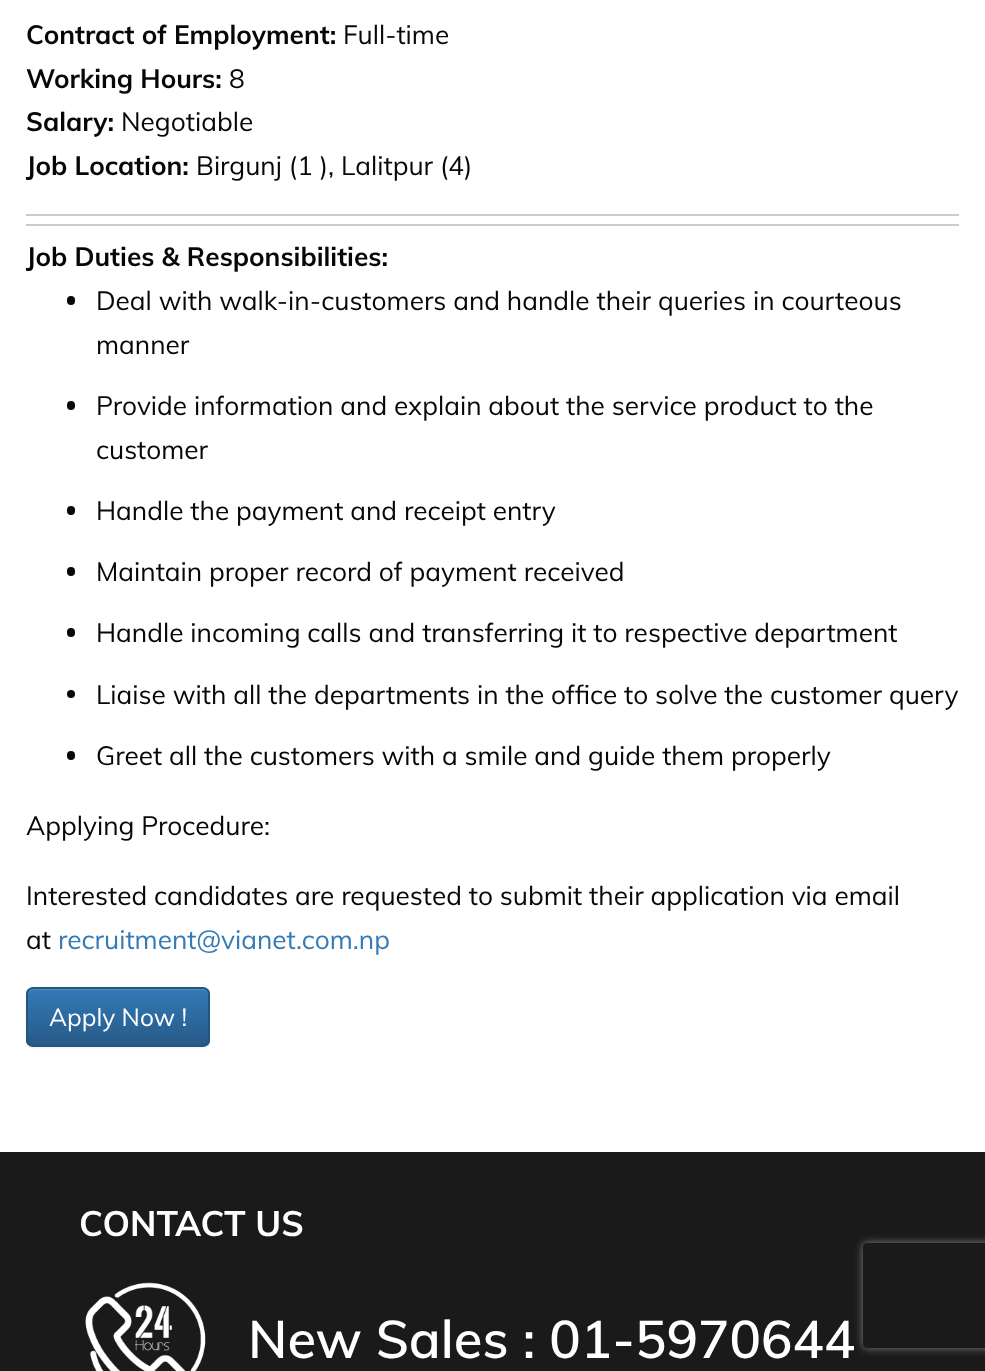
<svg xmlns="http://www.w3.org/2000/svg" width="985" height="1371" viewBox="0 0 985 1371">
  <style>
    .t1 { font: bold 26.25px Muli; fill: #070707; }
    .t2 { font: 26.25px Muli; fill: #070707; }
    .t3 { font: 26.25px Muli; fill: #337ab7; }
    .t4 { font: 24.5px Muli; fill: #fff; }
    .t5 { font: bold 35px Muli; fill: #fff; }
    .t6 { font: 600 52.5px Muli; fill: #fff; }
  </style>
  <defs>
    <clipPath id="clip1"><rect x="26" y="987" width="184" height="60" rx="7"/></clipPath>
    <linearGradient id="g1" gradientUnits="userSpaceOnUse" x1="118" y1="989" x2="118" y2="1045"><stop offset="0" stop-color="#337ab7"/><stop offset="1" stop-color="#265a88"/></linearGradient>
    <clipPath id="clip2"><path d="M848 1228H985V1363H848ZM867 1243H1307C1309 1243 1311 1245 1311 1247V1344C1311 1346 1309 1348 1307 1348H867C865 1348 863 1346 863 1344V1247C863 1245 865 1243 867 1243Z" clip-rule="evenodd"/></clipPath>
  </defs>
  <rect width="100%" height="100%" fill="#fff"/>
  <rect x="26" y="214" width="933" height="2" fill="#ccc"/>
  <text x="26" y="44" class="t1">Contract of Employment:</text>
  <text x="343" y="44" class="t2">Full-time</text>
  <text x="26" y="88" class="t1">Working Hours:</text>
  <text x="229" y="88" class="t2">8</text>
  <text x="26" y="131" class="t1">Salary:</text>
  <text x="121" y="131" class="t2">Negotiable</text>
  <text x="26" y="175" class="t1">Job Location:</text>
  <text x="196" y="175" class="t2">Birgunj (1 ), Lalitpur (4)</text>
  <rect x="26" y="224" width="933" height="2" fill="#ccc"/>
  <text x="26" y="266" class="t1">Job Duties &amp; Responsibilities:</text>
  <rect x="67" y="296" width="8" height="9" rx="4" fill="#070707"/>
  <text x="96" y="310" class="t2">Deal with walk-in-customers and handle their queries in courteous</text>
  <text x="96" y="354" class="t2">manner</text>
  <rect x="67" y="401" width="8" height="9" rx="4" fill="#070707"/>
  <text x="96" y="415" class="t2">Provide information and explain about the service product to the</text>
  <text x="96" y="459" class="t2">customer</text>
  <rect x="67" y="506" width="8" height="9" rx="4" fill="#070707"/>
  <text x="96" y="520" class="t2">Handle the payment and receipt entry</text>
  <rect x="67" y="567" width="8" height="9" rx="4" fill="#070707"/>
  <text x="96" y="581" class="t2">Maintain proper record of payment received</text>
  <rect x="67" y="628" width="8" height="9" rx="4" fill="#070707"/>
  <text x="96" y="642" class="t2">Handle incoming calls and transferring it to respective department</text>
  <circle cx="71" cy="694" r="4" fill="#070707"/>
  <text x="96" y="704" class="t2">Liaise with all the departments in the office to solve the customer query</text>
  <rect x="67" y="751" width="8" height="9" rx="4" fill="#070707"/>
  <text x="96" y="765" class="t2">Greet all the customers with a smile and guide them properly</text>
  <text x="26" y="835" class="t2">Applying Procedure:</text>
  <text x="26" y="905" class="t2">Interested candidates are requested to submit their application via email</text>
  <text x="26" y="949" class="t2">at</text>
  <text x="58" y="949" class="t3">recruitment@vianet.com.np</text>
  <rect x="26" y="989" width="184" height="59" rx="7" fill="#00000012" filter="blur(1px)"/>
  <g clip-path="url(#clip1)">
    <rect x="26" y="989" width="184" height="56" fill="url(#g1)"/>
  </g>
  <path d="M33 990H203C206 990 208 993 208 996V994C208 991 206 989 203 989H33C30 989 28 991 28 994V996C28 993 30 990 33 990Z" fill="#ffffff26"/>
  <rect x="27" y="988" width="182" height="58" rx="6" fill="none" stroke="#245580" stroke-width="2"/>
  <text x="49" y="1026" class="t4">Apply Now !</text>
  <rect x="0" y="1152" width="985" height="219" fill="#1a1a1a"/>
  <text x="79" y="1236" class="t5">CONTACT US</text>
  <image x="85" y="1282" width="121" height="89" href="images/1.png"/>
  <text x="248" y="1358" class="t6">New Sales : 01-5970644</text>
  <g clip-path="url(#clip2)">
    <rect x="863" y="1243" width="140" height="105" rx="4" fill="#808080" filter="blur(4.5px)"/>
  </g>
</svg>
